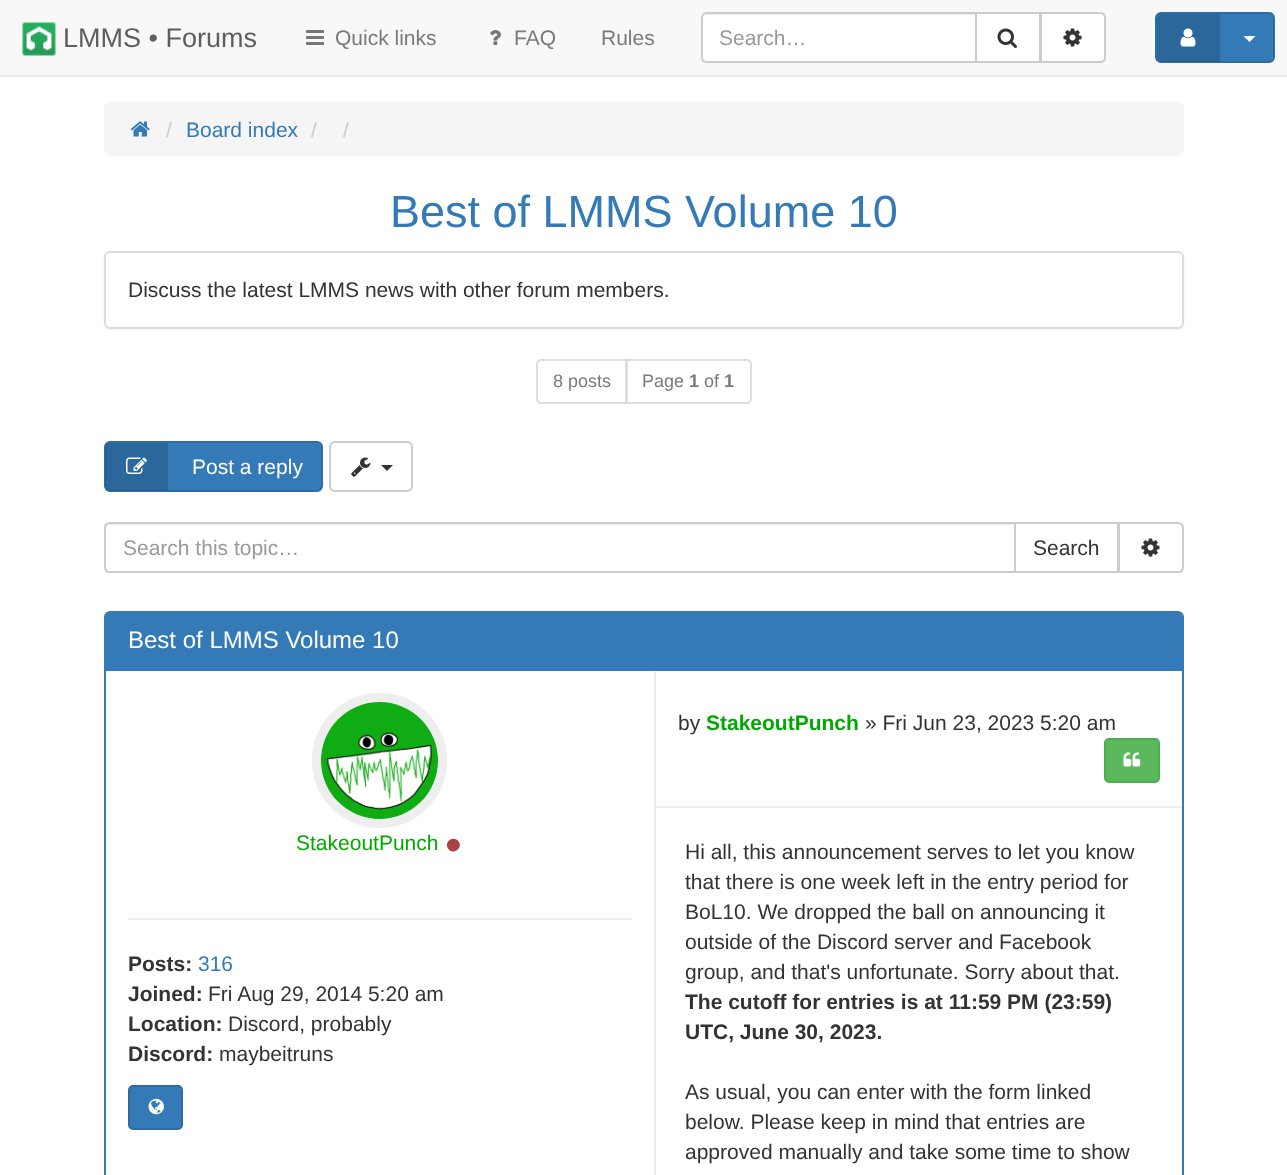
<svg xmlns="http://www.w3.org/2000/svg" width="1287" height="1175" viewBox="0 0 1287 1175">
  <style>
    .t1 { font: 27px Liberation Sans; fill: #5e5e5e; }
    .t2 { font: 21px Liberation Sans; fill: #7a7a7a; }
    .t3 { font: 21px Liberation Sans; fill: #999; }
    .t4 { font: 21px Liberation Sans; fill: #ccc; }
    .t5 { font: 21px Liberation Sans; fill: #337ab7; }
    .t6 { font: 45px Liberation Sans; fill: #337ab7; }
    .t7 { font: 21px Liberation Sans; fill: #333; }
    .t8 { font: 18px Liberation Sans; fill: #7a7a7a; }
    .t9 { font: bold 18px Liberation Sans; fill: #7a7a7a; }
    .t10 { font: 21px Liberation Sans; fill: #fff; }
    .t11 { font: 24px Liberation Sans; fill: #fff; }
    .t12 { font: 21px Liberation Sans; fill: #0a0; }
    .t13 { font: bold 21px Liberation Sans; fill: #333; }
    .t14 { font: bold 21px Liberation Sans; fill: #0a0; }
  </style>
  <rect width="100%" height="100%" fill="#fff"/>
  <rect x="0" y="0" width="1287" height="75" fill="#f8f8f8"/>
  <rect x="0" y="75" width="1287" height="2" fill="#e7e7e7"/>
  <image x="22" y="22" width="34" height="34" href="images/1.png"/>
  <text x="63" y="47" class="t1">LMMS • Forums</text>
  <image x="306" y="30" width="18" height="15" href="images/2.png"/>
  <text x="335" y="45" class="t2">Quick links</text>
  <image x="490" y="30" width="11" height="15" href="images/3.png"/>
  <text x="514" y="45" class="t2">FAQ</text>
  <text x="601" y="45" class="t2">Rules</text>
  <path d="M707 12H977V63H707C703.5 63 701 60.5 701 57V18C701 14.5 703.5 12 707 12Z" fill="#fff"/>
  <path d="M706 15H975V14H707C704 14 702 17 702 20C702 17 704 15 706 15Z" fill="#ececec"/>
  <path d="M707 13H976V62H707C704 62 702 60 702 57V18C702 15 704 13 707 13Z" fill="none" stroke="#ccc" stroke-width="2"/>
  <text x="719" y="45" class="t3">Search…</text>
  <rect x="976" y="13" width="64" height="49" fill="#fff" stroke="#ccc" stroke-width="2"/>
  <image x="997" y="28" width="20" height="20" href="images/4.png"/>
  <path d="M1041 13H1100C1103 13 1105 15 1105 18V57C1105 60 1103 62 1100 62H1041Z" fill="#fff" stroke="#ccc" stroke-width="2"/>
  <image x="1063" y="28" width="19" height="19" href="images/5.png"/>
  <rect x="1156" y="13" width="118" height="49" rx="5" fill="#337ab7" stroke="#2e6da4" stroke-width="2"/>
  <path d="M1162 14H1220V62H1162C1159 62 1157 60 1157 57V19C1157 16 1159 14 1162 14Z" fill="#00000026"/>
  <image x="1180" y="28" width="16" height="19" href="images/6.png"/>
  <path d="M1243.5 36H1255.5L1249.5 42Z" fill="#fff"/>
  <rect x="104" y="102" width="1080" height="54" rx="6" fill="#f5f5f5"/>
  <image x="130" y="121" width="20" height="16" href="images/7.png"/>
  <text x="166" y="137" class="t4">/</text>
  <text x="186" y="137" class="t5">Board index</text>
  <text x="311" y="137" class="t4">/</text>
  <text x="343" y="137" class="t4">/</text>
  <text x="390" y="227" class="t6">Best of LMMS Volume 10</text>
  <rect x="104" y="252" width="1080" height="78" rx="6" fill="#0000000d" filter="blur(1px)"/>
  <rect x="105" y="252" width="1078" height="76" rx="5" fill="#fff" stroke="#ddd" stroke-width="2"/>
  <text x="128" y="297" class="t7">Discuss the latest LMMS news with other forum members.</text>
  <path d="M541 360H626V403H541C539 403 537 401 537 399V364C537 362 539 360 541 360Z" fill="none" stroke="#dedede" stroke-width="2"/>
  <text x="553" y="387" class="t8">8 posts</text>
  <path d="M626 359H747C750 359 752 361 752 364V399C752 402 750 404 747 404H626Z" fill="#ffffffa6"/>
  <path d="M627 360H747C749 360 751 362 751 364V399C751 401 749 403 747 403H627Z" fill="none" stroke="#cccccca6" stroke-width="2"/>
  <text x="642" y="387" class="t8">Page</text>
  <text x="689" y="387" class="t9">1</text>
  <text x="704" y="387" class="t8">of</text>
  <text x="724" y="387" class="t9">1</text>
  <rect x="105" y="442" width="217" height="49" rx="5" fill="#337ab7" stroke="#2e6da4" stroke-width="2"/>
  <path d="M110 443H168V491H110C107 491 105 489 105 486V448C105 445 107 443 110 443Z" fill="#00000026"/>
  <image x="126" y="457" width="21" height="17" href="images/8.png"/>
  <text x="192" y="474" class="t10">Post a reply</text>
  <rect x="330" y="442" width="82" height="49" rx="5" fill="none" stroke="#ccc" stroke-width="2"/>
  <image x="351" y="457" width="20" height="20" href="images/9.png"/>
  <path d="M381 465H393L387 471Z" fill="#333"/>
  <path d="M110 525H1014V524H110C107 524 105 527 105 530C105 527 107 525 110 525Z" fill="#ececec"/>
  <path d="M110 523H1015V572H110C107 572 105 570 105 567V528C105 525 107 523 110 523Z" fill="none" stroke="#ccc" stroke-width="2"/>
  <text x="123" y="555" class="t3">Search this topic…</text>
  <rect x="1015" y="523" width="103" height="49" fill="none" stroke="#ccc" stroke-width="2"/>
  <text x="1033" y="555" class="t7">Search</text>
  <path d="M1119 523H1178C1181 523 1183 525 1183 528V567C1183 570 1181 572 1178 572H1119Z" fill="#fff" stroke="#ccc" stroke-width="2"/>
  <image x="1141" y="538" width="19" height="19" href="images/5.png"/>
  <rect x="105" y="612" width="1078" height="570" rx="5" fill="none" stroke="#337ab7" stroke-width="2"/>
  <path d="M110 612H1177C1180 612 1182 614 1182 617V671H105V617C105 614 107 612 110 612Z" fill="#337ab7"/>
  <text x="128" y="648" class="t11">Best of LMMS Volume 10</text>
  <rect x="654" y="671" width="2" height="504" fill="#eee"/>
  <circle cx="379.5" cy="760.5" r="63" fill="none" stroke="#eee" stroke-width="9"/>
  <image x="321" y="702" width="117" height="117" href="images/10.png"/>
  <text x="296" y="850" class="t12">StakeoutPunch</text>
  <path d="M459 842C463 849 452 855.5 448 848.5C443.5 841 454.5 834.5 459 842Z" fill="#a94442"/>
  <rect x="128" y="918" width="504" height="2" fill="#eee"/>
  <text x="128" y="971" class="t13">Posts:</text>
  <text x="198" y="971" class="t5">316</text>
  <text x="128" y="1001" class="t13">Joined:</text>
  <text x="208" y="1001" class="t7">Fri Aug 29, 2014 5:20 am</text>
  <text x="128" y="1031" class="t13">Location:</text>
  <text x="228" y="1031" class="t7">Discord, probably</text>
  <text x="128" y="1061" class="t13">Discord:</text>
  <text x="219" y="1061" class="t7">maybeitruns</text>
  <rect x="129" y="1086" width="53" height="43" rx="4" fill="#337ab7" stroke="#2e6da4" stroke-width="2"/>
  <image x="148" y="1098" width="16" height="17" href="images/11.png"/>
  <rect x="656" y="806" width="526" height="2" fill="#eee"/>
  <text x="678" y="730" class="t7">by</text>
  <text x="706" y="730" class="t14">StakeoutPunch</text>
  <text x="865" y="730" class="t7">» Fri Jun 23, 2023 5:20 am</text>
  <rect x="1105" y="739" width="54" height="43" rx="4" fill="#5cb85c" stroke="#4cae4c" stroke-width="2"/>
  <image x="1123" y="752" width="18" height="15" href="images/12.png"/>
  <text x="685" y="859" class="t7">Hi all, this announcement serves to let you know</text>
  <text x="685" y="889" class="t7">that there is one week left in the entry period for</text>
  <text x="685" y="919" class="t7">BoL10. We dropped the ball on announcing it</text>
  <text x="685" y="949" class="t7">outside of the Discord server and Facebook</text>
  <text x="685" y="979" class="t7">group, and that's unfortunate. Sorry about that.</text>
  <text x="685" y="1009" class="t13">The cutoff for entries is at 11:59 PM (23:59)</text>
  <text x="685" y="1039" class="t13">UTC, June 30, 2023.</text>
  <text x="685" y="1099" class="t7">As usual, you can enter with the form linked</text>
  <text x="685" y="1129" class="t7">below. Please keep in mind that entries are</text>
  <text x="685" y="1159" class="t7">approved manually and take some time to show</text>
</svg>
